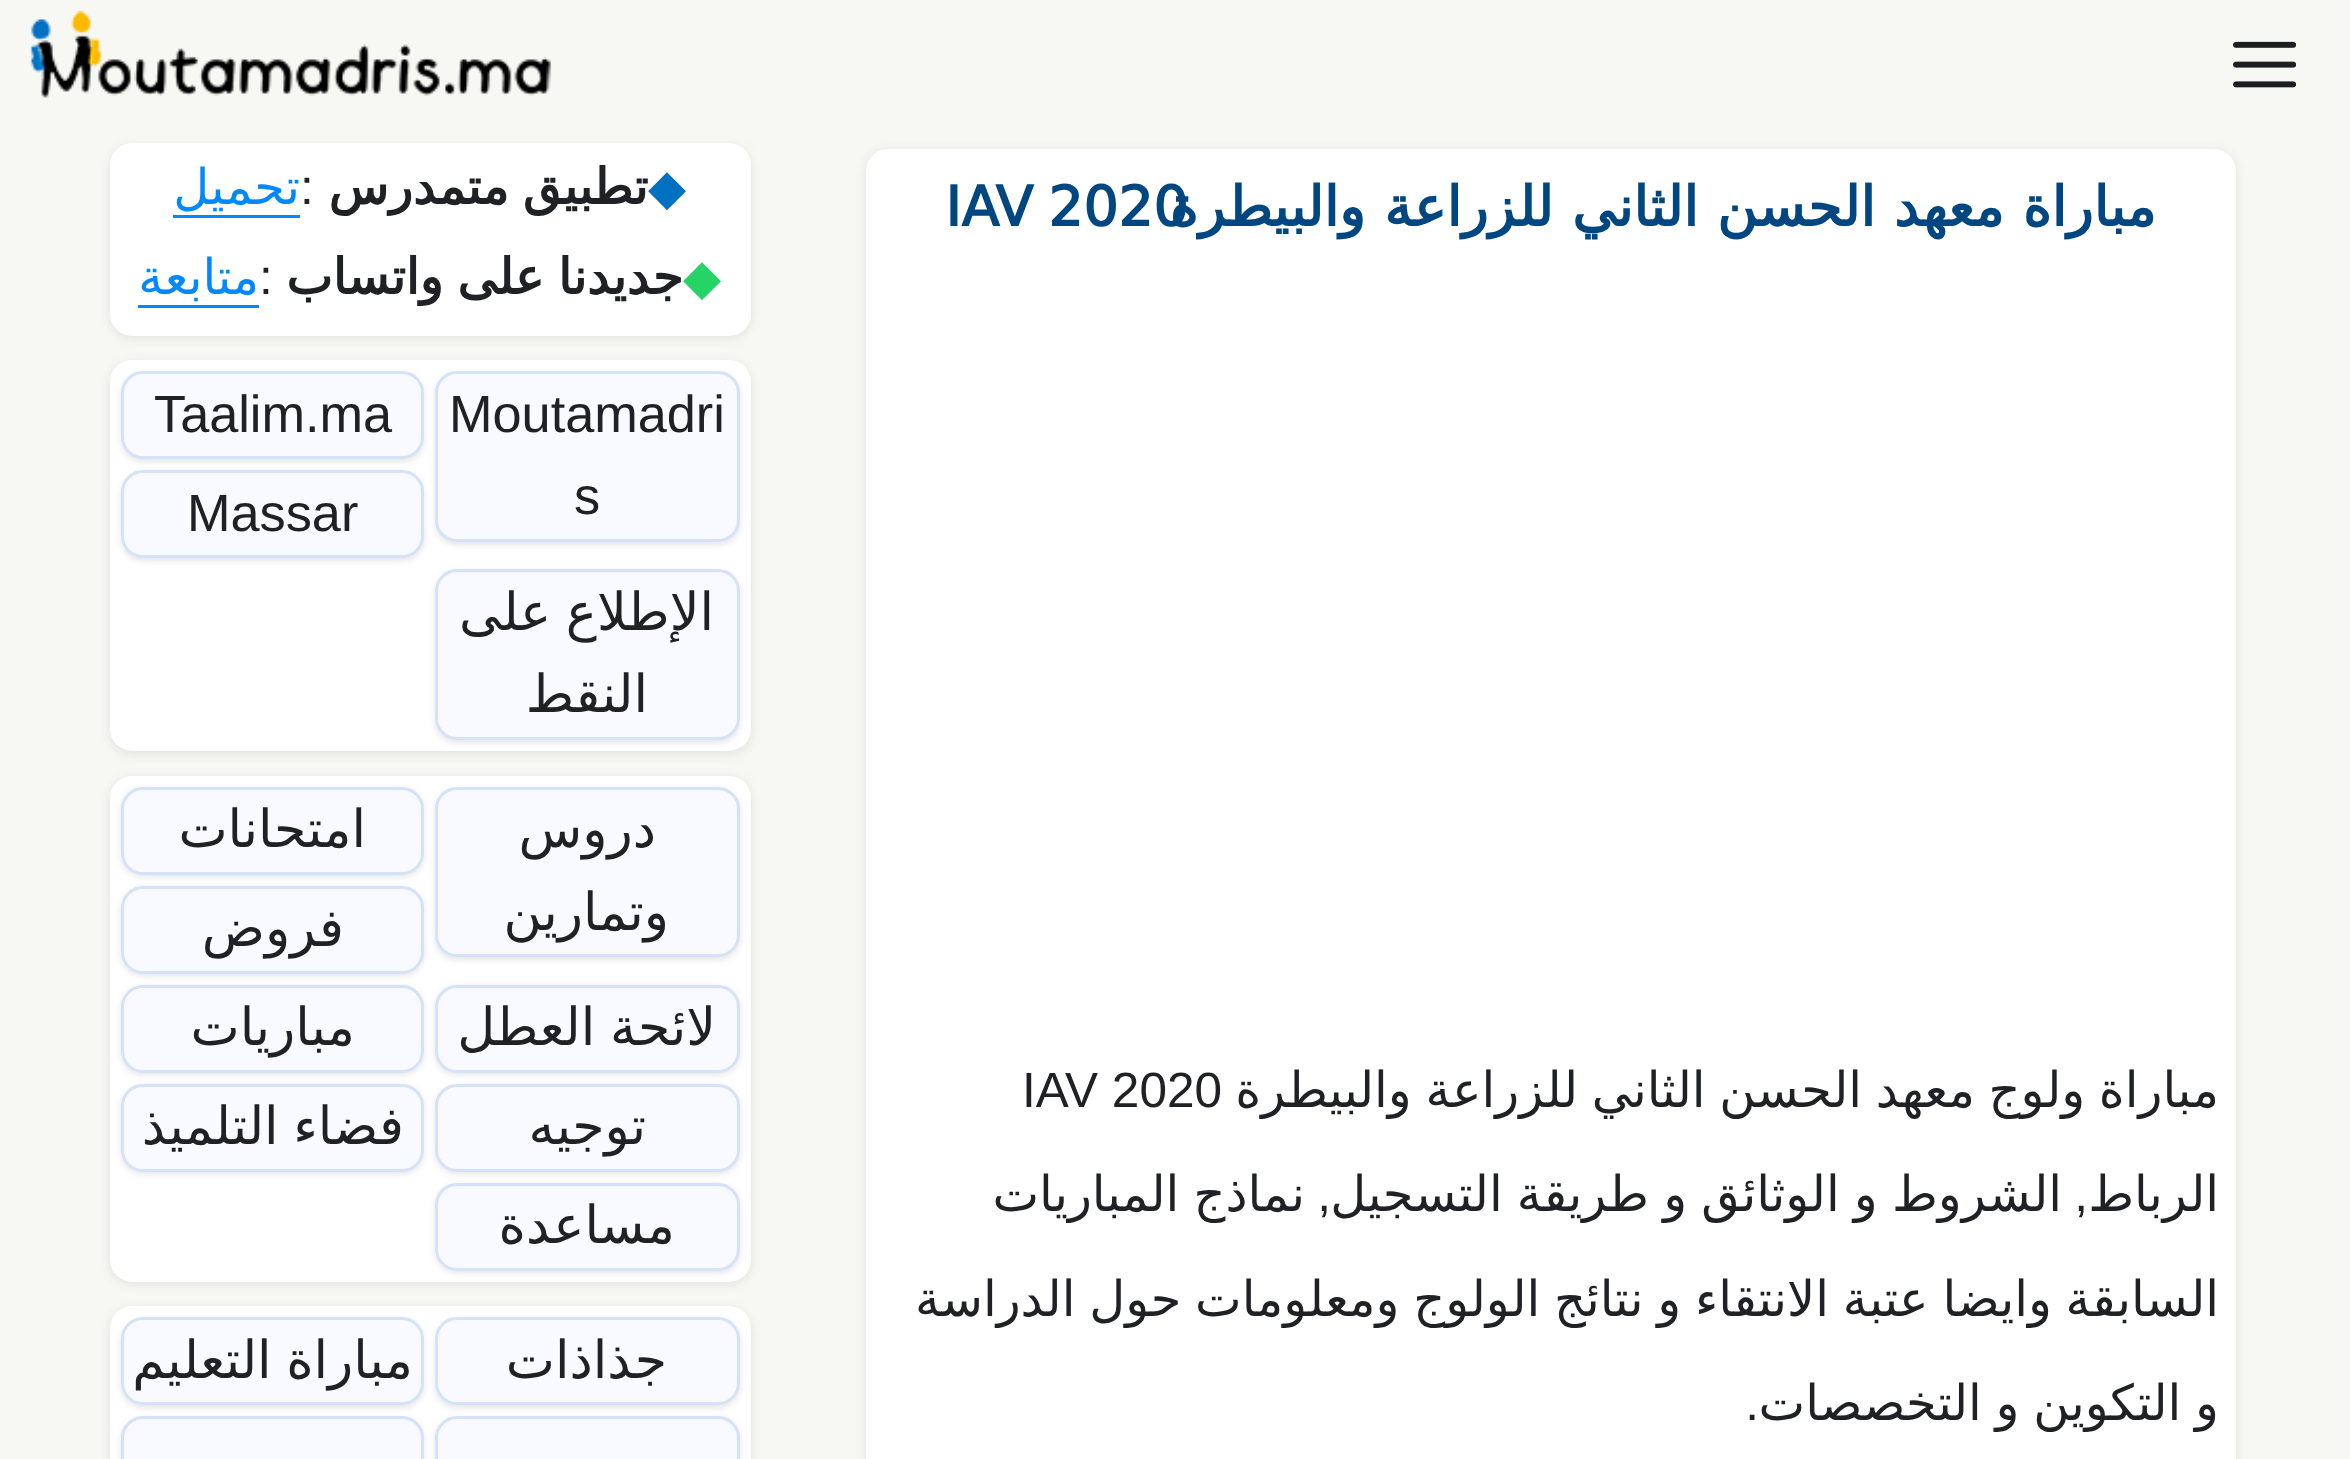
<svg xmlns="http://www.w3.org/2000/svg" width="2350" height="1459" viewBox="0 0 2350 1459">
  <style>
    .t1 { font: bold 55px DejaVu Sans; fill: #004680; }
    .t2 { font: bold 55px DejaVu Sans; direction: rtl; fill: #004680; }
    .t3 { font: 49.5px DejaVu Sans; direction: rtl; fill: #202125; }
    .t4 { font: 49.5px Liberation Sans; fill: #202125; }
    .t5 { font: 49.5px Liberation Sans; direction: rtl; fill: #202125; }
    .t6 { font: 49.5px DejaVu Sans; fill: #0070c0; }
    .t7 { font: bold 49.5px DejaVu Sans; direction: rtl; fill: #202125; }
    .t8 { font: 49.5px DejaVu Sans; direction: rtl; fill: #08f; }
    .t9 { font: 49.5px DejaVu Sans; fill: #25d366; }
    .t10 { font: 52.25px Liberation Sans; fill: #202125; }
    .t11 { font: 52.25px DejaVu Sans; direction: rtl; fill: #202125; }
  </style>
  <rect width="100%" height="100%" fill="#f7f7f4"/>
  <image x="2233" y="41" width="63" height="47" href="images/1.png"/>
  <image x="30" y="11" width="522" height="87" href="images/2.png"/>
  <rect x="866" y="151" width="1370" height="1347" rx="22" fill="#00000017" filter="blur(5.5px)"/>
  <rect x="866" y="149" width="1370" height="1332" rx="22" fill="#fff"/>
  <text x="1048" y="226" class="t1">2020</text>
  <text x="2156" y="226" word-spacing="1" class="t2">مباراة معهد الحسن الثاني للزراعة والبيطرة</text>
  <text x="945" y="226" class="t1">IAV</text>
  <text x="2219" y="1107" word-spacing="-2" class="t3">مباراة ولوج معهد الحسن الثاني للزراعة والبيطرة</text>
  <text x="1022" y="1107" class="t4">IAV 2020</text>
  <text x="2219" y="1211" class="t3">الرباط</text>
  <text x="2088" y="1211" class="t5">,</text>
  <text x="2062" y="1211" word-spacing="-1.5" class="t3">الشروط و الوثائق و طريقة التسجيل</text>
  <text x="1331" y="1211" class="t5">,</text>
  <text x="1305" y="1211" word-spacing="-1.5" class="t3">نماذج المباريات</text>
  <text x="2219" y="1316" word-spacing="-2" class="t3">السابقة وايضا عتبة الانتقاء و نتائج الولوج ومعلومات حول الدراسة</text>
  <text x="2219" y="1420" word-spacing="-2" class="t3">و التكوين و التخصصات</text>
  <text x="1759" y="1420" class="t5">.</text>
  <rect x="110" y="146" width="641" height="192" rx="22" fill="#00000017" filter="blur(5.5px)"/>
  <rect x="110" y="143" width="641" height="193" rx="22" fill="#fff"/>
  <text x="648" y="204" class="t6">◆</text>
  <text x="648" y="204" word-spacing="-2" class="t7">تطبيق متمدرس</text>
  <text x="300" y="204" class="t4">:</text>
  <text x="300" y="204" class="t8">تحميل</text>
  <rect x="173" y="215" width="127" height="3" fill="#08f"/>
  <text x="683" y="294" class="t9">◆</text>
  <text x="683" y="294" word-spacing="-2" class="t7">جديدنا على واتساب</text>
  <text x="259" y="294" class="t4">:</text>
  <text x="259" y="294" class="t8">متابعة</text>
  <rect x="138" y="305" width="121" height="3" fill="#08f"/>
  <rect x="110" y="363" width="641" height="391" rx="22" fill="#00000017" filter="blur(5.5px)"/>
  <rect x="110" y="360" width="641" height="391" rx="22" fill="#fff"/>
  <rect x="435" y="374" width="305" height="171" rx="22" fill="#0000001a" filter="blur(3px)"/>
  <rect x="436.5" y="372.5" width="302" height="168" rx="20.5" fill="#f8faff" stroke="#d5e2fa" stroke-width="3"/>
  <text x="449" y="432" class="t10">Moutamadri</text>
  <text x="574" y="514" class="t10">s</text>
  <rect x="121" y="374" width="303" height="88" rx="22" fill="#0000001a" filter="blur(3px)"/>
  <rect x="122.5" y="372.5" width="300" height="85" rx="20.5" fill="#f8faff" stroke="#d5e2fa" stroke-width="3"/>
  <text x="154" y="432" class="t10">Taalim.ma</text>
  <rect x="121" y="473" width="303" height="88" rx="22" fill="#0000001a" filter="blur(3px)"/>
  <rect x="122.5" y="471.5" width="300" height="85" rx="20.5" fill="#f8faff" stroke="#d5e2fa" stroke-width="3"/>
  <text x="187" y="531" class="t10">Massar</text>
  <rect x="435" y="572" width="305" height="171" rx="22" fill="#0000001a" filter="blur(3px)"/>
  <rect x="436.5" y="570.5" width="302" height="168" rx="20.5" fill="#f8faff" stroke="#d5e2fa" stroke-width="3"/>
  <text x="714" y="630" word-spacing="-2" class="t11">الإطلاع على</text>
  <text x="648" y="712" class="t11">النقط</text>
  <rect x="110" y="778" width="641" height="506" rx="22" fill="#00000017" filter="blur(5.5px)"/>
  <rect x="110" y="776" width="641" height="506" rx="22" fill="#fff"/>
  <rect x="435" y="789" width="305" height="171" rx="22" fill="#0000001a" filter="blur(3px)"/>
  <rect x="436.5" y="788.5" width="302" height="167" rx="20.5" fill="#f8faff" stroke="#d5e2fa" stroke-width="3"/>
  <text x="656" y="847" class="t11">دروس</text>
  <text x="669" y="930" class="t11">وتمارين</text>
  <rect x="121" y="789" width="303" height="88" rx="22" fill="#0000001a" filter="blur(3px)"/>
  <rect x="122.5" y="788.5" width="300" height="85" rx="20.5" fill="#f8faff" stroke="#d5e2fa" stroke-width="3"/>
  <text x="366" y="847" class="t11">امتحانات</text>
  <rect x="121" y="888" width="303" height="88" rx="22" fill="#0000001a" filter="blur(3px)"/>
  <rect x="122.5" y="887.5" width="300" height="85" rx="20.5" fill="#f8faff" stroke="#d5e2fa" stroke-width="3"/>
  <text x="344" y="946" class="t11">فروض</text>
  <rect x="435" y="987" width="305" height="88" rx="22" fill="#0000001a" filter="blur(3px)"/>
  <rect x="436.5" y="986.5" width="302" height="85" rx="20.5" fill="#f8faff" stroke="#d5e2fa" stroke-width="3"/>
  <text x="716" y="1045" word-spacing="-2" class="t11">لائحة العطل</text>
  <rect x="121" y="987" width="303" height="88" rx="22" fill="#0000001a" filter="blur(3px)"/>
  <rect x="122.5" y="986.5" width="300" height="85" rx="20.5" fill="#f8faff" stroke="#d5e2fa" stroke-width="3"/>
  <text x="355" y="1045" class="t11">مباريات</text>
  <rect x="435" y="1086" width="305" height="88" rx="22" fill="#0000001a" filter="blur(3px)"/>
  <rect x="436.5" y="1085.5" width="302" height="85" rx="20.5" fill="#f8faff" stroke="#d5e2fa" stroke-width="3"/>
  <text x="646" y="1144" class="t11">توجيه</text>
  <rect x="121" y="1086" width="303" height="88" rx="22" fill="#0000001a" filter="blur(3px)"/>
  <rect x="122.5" y="1085.5" width="300" height="85" rx="20.5" fill="#f8faff" stroke="#d5e2fa" stroke-width="3"/>
  <text x="404" y="1144" word-spacing="-2" class="t11">فضاء التلميذ</text>
  <rect x="435" y="1185" width="305" height="88" rx="22" fill="#0000001a" filter="blur(3px)"/>
  <rect x="436.5" y="1184.5" width="302" height="85" rx="20.5" fill="#f8faff" stroke="#d5e2fa" stroke-width="3"/>
  <text x="675" y="1243" class="t11">مساعدة</text>
  <rect x="110" y="1309" width="641" height="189" rx="22" fill="#00000017" filter="blur(5.5px)"/>
  <rect x="110" y="1306" width="641" height="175" rx="22" fill="#fff"/>
  <rect x="435" y="1320" width="305" height="88" rx="22" fill="#0000001a" filter="blur(3px)"/>
  <rect x="436.5" y="1318.5" width="302" height="85" rx="20.5" fill="#f8faff" stroke="#d5e2fa" stroke-width="3"/>
  <text x="667" y="1378" class="t11">جذاذات</text>
  <rect x="121" y="1320" width="303" height="88" rx="22" fill="#0000001a" filter="blur(3px)"/>
  <rect x="122.5" y="1318.5" width="300" height="85" rx="20.5" fill="#f8faff" stroke="#d5e2fa" stroke-width="3"/>
  <text x="413" y="1378" word-spacing="-2" class="t11">مباراة التعليم</text>
  <rect x="435" y="1419" width="305" height="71" rx="22" fill="#0000001a" filter="blur(3px)"/>
  <rect x="436.5" y="1417.5" width="302" height="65" rx="20.5" fill="#f8faff" stroke="#d5e2fa" stroke-width="3"/>
  <rect x="121" y="1419" width="303" height="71" rx="22" fill="#0000001a" filter="blur(3px)"/>
  <rect x="122.5" y="1417.5" width="300" height="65" rx="20.5" fill="#f8faff" stroke="#d5e2fa" stroke-width="3"/>
</svg>
